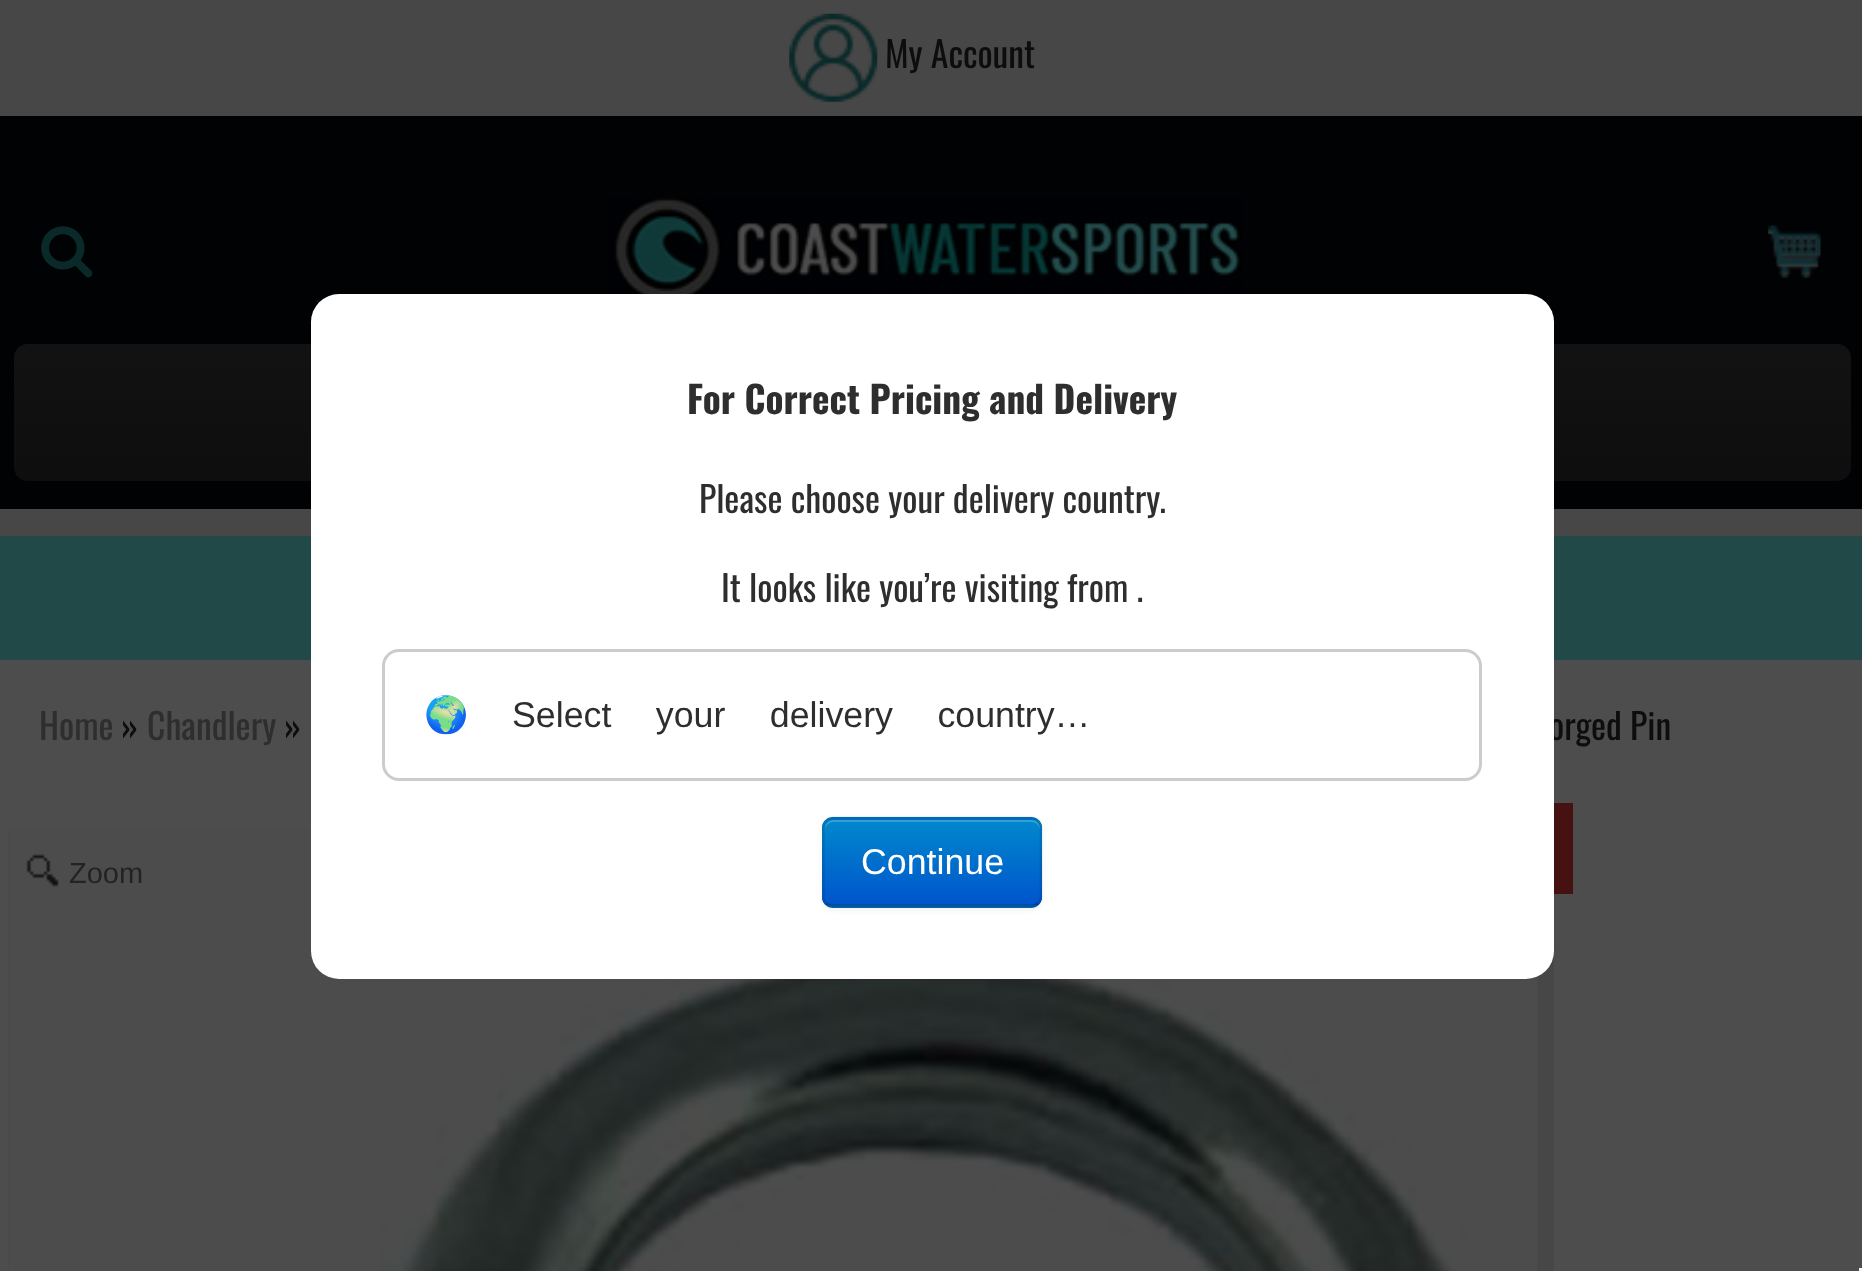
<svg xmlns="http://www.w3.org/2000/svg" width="1862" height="1271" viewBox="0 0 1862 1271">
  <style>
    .t1 { font: 35.75px Oswald; fill: #0d0d0d; }
    .t2 { font: 35.75px Oswald; fill: #2e2e2e; }
    .t3 { font: 29px Liberation Sans; fill: #232323; }
    .t4 { font: bold 37.25px Oswald; fill: #2e2e2e; }
    .t5 { font: 35.75px Noto Color Emoji; fill: #2e2e2e; }
    .t6 { font: 35.75px Liberation Sans; fill: #2e2e2e; }
    .t7 { font: 35.75px Liberation Sans; fill: #fff; }
  </style>
  <defs>
    <linearGradient id="g1" gradientUnits="userSpaceOnUse" x1="932" y1="344" x2="932" y2="481"><stop offset="0" stop-color="#121212"/><stop offset="1" stop-color="#0e0e0e"/></linearGradient>
    <clipPath id="clip1"><rect x="822" y="817" width="220" height="91" rx="11"/></clipPath>
    <linearGradient id="g2" gradientUnits="userSpaceOnUse" x1="932" y1="820" x2="932" y2="905"><stop offset="0" stop-color="#08c"/><stop offset="1" stop-color="#05c"/></linearGradient>
  </defs>
  <rect width="100%" height="100%" fill="#4d4d4d"/>
  <rect x="0" y="0" width="1862" height="116" fill="#474747"/>
  <image x="789" y="13" width="89" height="89" href="images/1.png"/>
  <text x="885" y="68" class="t1">My Account</text>
  <rect x="0" y="116" width="1862" height="393" fill="#000204"/>
  <rect x="14" y="344" width="1837" height="137" rx="14" fill="url(#g1)"/>
  <image x="41" y="226" width="52" height="52" href="images/2.png"/>
  <image x="608" y="198" width="634" height="96" href="images/3.png"/>
  <image x="1768" y="225" width="53" height="53" href="images/4.png"/>
  <rect x="0" y="509" width="1862" height="27" fill="#474747"/>
  <rect x="0" y="536" width="1862" height="124" fill="#204948"/>
  <text x="39" y="740" class="t2">Home</text>
  <text x="121" y="740" class="t1">»</text>
  <text x="147" y="740" class="t2">Chandlery</text>
  <text x="284" y="740" class="t1">»</text>
  <text x="1549" y="740" class="t1">orged Pin</text>
  <rect x="8" y="828" width="1546" height="443" fill="#474747"/>
  <image x="8" y="828" width="1530" height="443" href="images/5.png"/>
  <image x="26" y="854" width="33" height="33" href="images/6.png"/>
  <text x="69" y="883" class="t3">Zoom</text>
  <rect x="1554" y="803" width="19" height="91" fill="#461211"/>
  <rect x="311" y="294" width="1243" height="685" rx="28" fill="#fff"/>
  <text x="687" y="414" class="t4">For Correct Pricing and Delivery</text>
  <text x="699" y="513" class="t2">Please choose your delivery country.</text>
  <text x="721" y="602" class="t2">It looks like you’re visiting from .</text>
  <rect x="383.5" y="650.5" width="1097" height="129" rx="15.5" fill="none" stroke="#ccc" stroke-width="3"/>
  <text x="424" y="727" class="t5">🌍</text>
  <text x="512" y="727" word-spacing="34.5" class="t6">Select your delivery country…</text>
  <rect x="822" y="820" width="220" height="90" rx="11" fill="#0000000d" filter="blur(3px)"/>
  <rect x="822" y="817" width="220" height="91" rx="11" fill="#0074cc"/>
  <g clip-path="url(#clip1)">
    <rect x="822" y="820" width="220" height="85" fill="url(#g2)"/>
  </g>
  <path d="M833 822H1031C1036 822 1040 826 1040 830V828C1040 824 1036 820 1032 820H833C829 820 825 824 825 828V830C825 826 829 822 833 822Z" fill="#ffffff33"/>
  <path d="M1038 903.5C1036.5 905 1034 906 1031 906H833C830.5 906 828 905 826.5 903.5" fill="none" stroke="#00000040" stroke-width="2.8"/>
  <path d="M826.5 903.5C824.5 901.5 823.5 899 823.5 896.5V828C823.5 825 824.5 822.5 826.5 821C828 819 830.5 818 833 818H1031C1034 818 1036.5 819 1038 821C1040 822.5 1041 825 1041 828V896.5C1041 899 1040 901.5 1038 903.5" fill="none" stroke="#0000001a" stroke-width="2.8"/>
  <text x="861" y="874" class="t7">Continue</text>
  <rect x="1859" y="1268" width="3" height="3" fill="#f5f5f5"/>
</svg>
